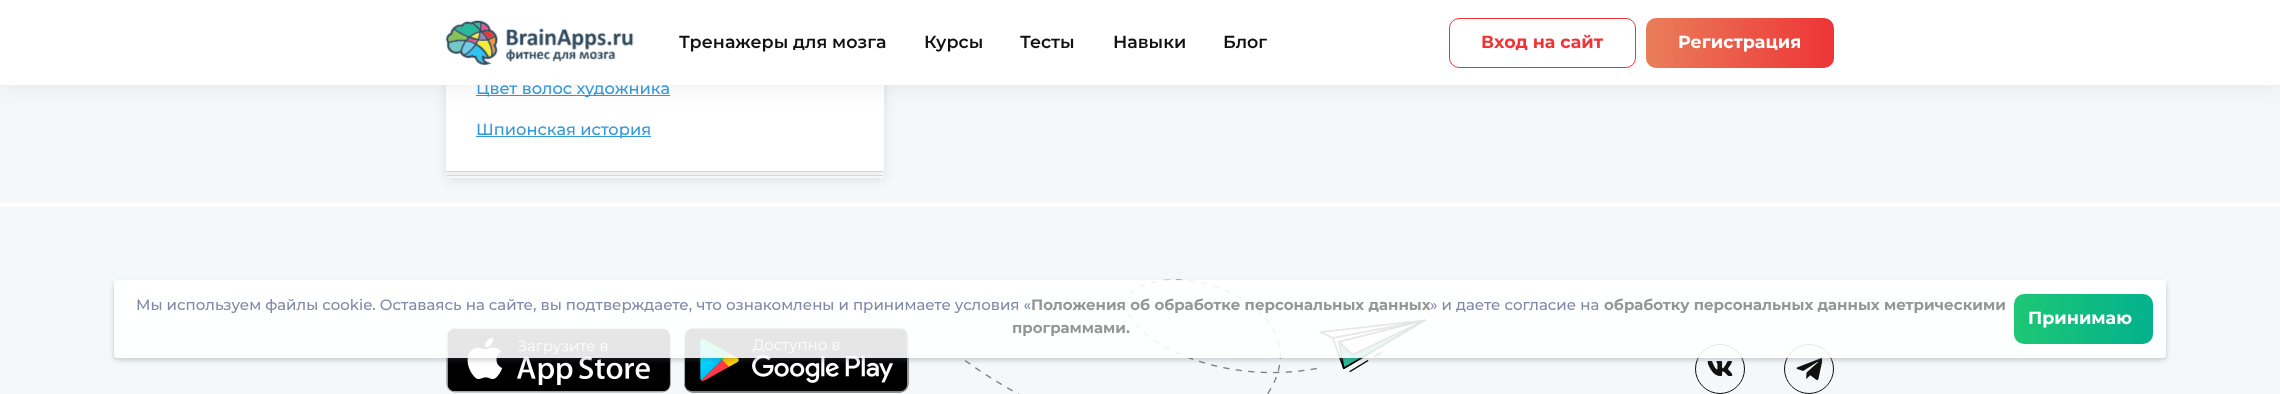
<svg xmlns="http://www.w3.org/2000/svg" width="2280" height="394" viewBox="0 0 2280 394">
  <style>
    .t1 { font: 500 16.25px Montserrat; fill: #3498db; }
    .t2 { font: 600 17.5px Montserrat; fill: #111; }
    .t3 { font: bold 17.5px Montserrat; fill: #ee3436; }
    .t4 { font: bold 17.5px Montserrat; fill: #fff; }
    .t5 { font: 500 15px Montserrat; fill: #8189a9; }
    .t6 { font: bold 15px Montserrat; fill: #969696; }
  </style>
  <defs>
    <linearGradient id="g1" gradientUnits="userSpaceOnUse" x1="1646" y1="43" x2="1834" y2="42"><stop offset="0" stop-color="#e97e5a"/><stop offset="1" stop-color="#ee3436"/></linearGradient>
    <clipPath id="clip1"><path d="M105 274H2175V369H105ZM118 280H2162C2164 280 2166 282 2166 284V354C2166 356 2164 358 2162 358H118C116 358 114 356 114 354V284C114 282 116 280 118 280Z" clip-rule="evenodd"/></clipPath>
    <linearGradient id="g2" gradientUnits="userSpaceOnUse" x1="2153" y1="320" x2="2014" y2="318"><stop offset="0" stop-color="#03b18d"/><stop offset="1" stop-color="#1dc775"/></linearGradient>
  </defs>
  <rect width="100%" height="100%" fill="#f5f8fa"/>
  <rect x="446" y="-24" width="438" height="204" rx="6" fill="#0000001a" filter="blur(6px)"/>
  <rect x="446" y="-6" width="438" height="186" rx="6" fill="#fff"/>
  <rect x="476" y="95" width="194" height="1" fill="#3498db"/>
  <rect x="0" y="5" width="2280" height="85" fill="#0000000d" filter="blur(9.5px)"/>
  <text x="476" y="94" class="t1">Цвет волос художника</text>
  <rect x="0" y="0" width="2280" height="85" fill="#fff"/>
  <image x="446" y="20" width="188" height="45" href="images/1.png"/>
  <text x="679" y="48" class="t2">Тренажеры для мозга</text>
  <text x="924" y="48" class="t2">Курсы</text>
  <text x="1020" y="48" class="t2">Тесты</text>
  <text x="1113" y="48" class="t2">Навыки</text>
  <text x="1223" y="48" class="t2">Блог</text>
  <rect x="1449.5" y="18.5" width="186" height="49" rx="9.5" fill="none" stroke="#ee3436"/>
  <text x="1481" y="48" class="t3">Вход на сайт</text>
  <rect x="1646" y="18" width="188" height="50" rx="10" fill="url(#g1)"/>
  <text x="1678" y="48" class="t4">Регистрация</text>
  <image x="446" y="171" width="438" height="9" href="images/2.png"/>
  <rect x="476" y="136" width="175" height="1" fill="#3498db"/>
  <text x="476" y="135" class="t1">Шпионская история</text>
  <rect x="0" y="203" width="2280" height="4" fill="#fff"/>
  <image x="446" y="328" width="225" height="65" href="images/3.png"/>
  <image x="684" y="328" width="225" height="65" href="images/4.png"/>
  <image x="964" y="279" width="462" height="115" href="images/5.png"/>
  <circle cx="1720" cy="369" r="24.5" fill="none" stroke="#111"/>
  <image x="1707" y="361" width="26" height="15" href="images/6.png"/>
  <circle cx="1809" cy="369" r="24.5" fill="none" stroke="#111"/>
  <image x="1796" y="358" width="27" height="22" href="images/7.png"/>
  <g clip-path="url(#clip1)">
    <rect x="114" y="283" width="2052" height="77" rx="4" fill="#555c6a4d" filter="blur(2.5px)"/>
  </g>
  <rect x="114" y="280" width="2052" height="78" rx="4" fill="#ffffffe6"/>
  <text x="136" y="310" class="t5">Мы используем файлы cookie. Оставаясь на сайте, вы подтверждаете, что ознакомлены и принимаете условия «</text>
  <text x="1031" y="310" class="t6">Положения об обработке персональных данных</text>
  <text x="1430" y="310" class="t5">» и даете согласие на</text>
  <text x="1604" y="310" class="t6">обработку персональных данных метрическими</text>
  <text x="1012" y="333" class="t6">программами.</text>
  <rect x="2014" y="294" width="139" height="50" rx="10" fill="url(#g2)"/>
  <text x="2028" y="324" class="t4">Принимаю</text>
</svg>
